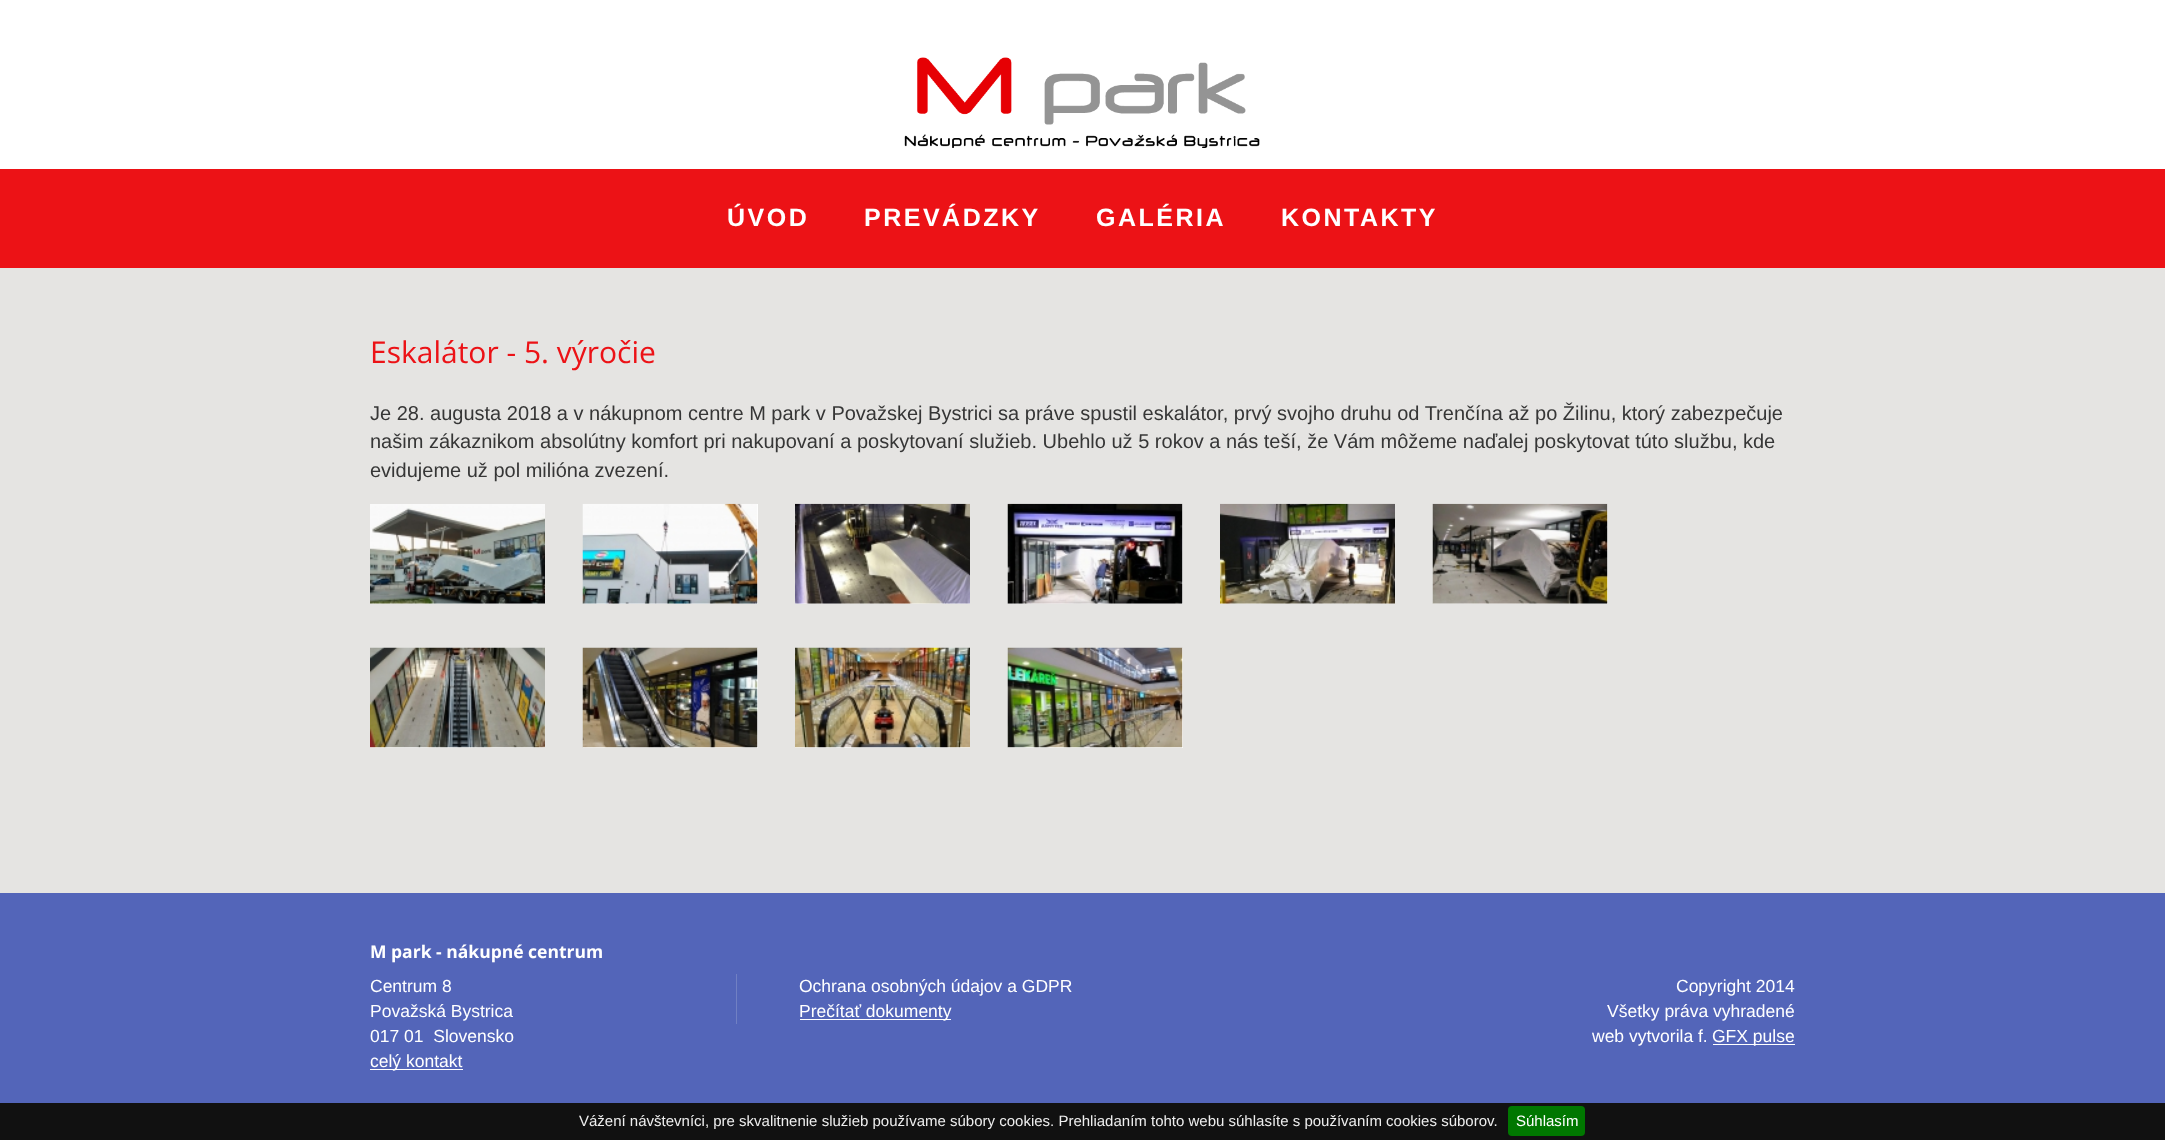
<svg xmlns="http://www.w3.org/2000/svg" width="2165" height="1140" viewBox="0 0 2165 1140">
  <style>
    .t1 { font: bold 25px Liberation Sans; letter-spacing: 2.5px; fill: #fff; }
    .t2 { font: 30px Open Sans; fill: #ec1216; }
    .t3 { font: 20px Liberation Sans; fill: #363636; }
    .t4 { font: bold 17.5px Open Sans; fill: #fff; }
    .t5 { font: 17.5px Liberation Sans; fill: #fff; }
    .t6 { font: 15px Liberation Sans; fill: #eee; }
    .t7 { font: 15px Liberation Sans; fill: #fff; }
  </style>
  <rect width="100%" height="100%" fill="#5365b9"/>
  <rect x="0" y="0" width="2165" height="169" fill="#fff"/>
  <image x="904" y="57" width="356" height="91" href="images/1.png"/>
  <rect x="0" y="169" width="2165" height="99" fill="#ec1216"/>
  <text x="727" y="226" class="t1">ÚVOD</text>
  <text x="864" y="226" class="t1">PREVÁDZKY</text>
  <text x="1096" y="226" class="t1">GALÉRIA</text>
  <text x="1281" y="226" class="t1">KONTAKTY</text>
  <rect x="0" y="268" width="2165" height="625" fill="#e5e4e2"/>
  <text x="370" y="363" class="t2">Eskalátor - 5. výročie</text>
  <text x="370" y="420" class="t3">Je 28. augusta 2018 a v nákupnom centre M park v Považskej Bystrici sa práve spustil eskalátor, prvý svojho druhu od Trenčína až po Žilinu, ktorý zabezpečuje</text>
  <text x="370" y="448" class="t3">našim zákaznikom absolútny komfort pri nakupovaní a poskytovaní služieb. Ubehlo už 5 rokov a nás teší, že Vám môžeme naďalej poskytovat túto službu, kde</text>
  <text x="370" y="477" class="t3">evidujeme už pol milióna zvezení.</text>
  <rect x="370" y="603" width="175" height="1" fill="#fff"/>
  <image x="370" y="504" width="175" height="100" href="images/2.png"/>
  <rect x="583" y="504" width="175" height="100" fill="#fff"/>
  <image x="582" y="503" width="176" height="101" href="images/3.png"/>
  <rect x="795" y="603" width="175" height="1" fill="#fff"/>
  <image x="795" y="503" width="175" height="101" href="images/4.png"/>
  <rect x="1008" y="504" width="175" height="100" fill="#fff"/>
  <image x="1007" y="503" width="176" height="101" href="images/5.png"/>
  <rect x="1220" y="603" width="175" height="1" fill="#fff"/>
  <image x="1220" y="503" width="175" height="101" href="images/6.png"/>
  <rect x="1433" y="504" width="175" height="100" fill="#fff"/>
  <image x="1432" y="503" width="176" height="101" href="images/7.png"/>
  <rect x="370" y="747" width="175" height="1" fill="#fff"/>
  <image x="370" y="647" width="175" height="101" href="images/8.png"/>
  <rect x="583" y="648" width="175" height="100" fill="#fff"/>
  <image x="582" y="647" width="176" height="101" href="images/9.png"/>
  <rect x="795" y="747" width="175" height="1" fill="#fff"/>
  <image x="795" y="647" width="175" height="101" href="images/10.png"/>
  <rect x="1008" y="648" width="175" height="100" fill="#fff"/>
  <image x="1007" y="647" width="176" height="101" href="images/11.png"/>
  <text x="370" y="958" class="t4">M park - nákupné centrum</text>
  <text x="370" y="992" class="t5">Centrum 8</text>
  <text x="370" y="1017" class="t5">Považská Bystrica</text>
  <text x="370" y="1042" class="t5" xml:space="preserve">017 01  Slovensko</text>
  <rect x="370" y="1069" width="93" height="1" fill="#fff"/>
  <text x="370" y="1067" class="t5">celý kontakt</text>
  <rect x="736" y="974" width="1" height="50" fill="#7180c3"/>
  <text x="799" y="992" class="t5">Ochrana osobných údajov a GDPR</text>
  <rect x="800" y="1019" width="151" height="1" fill="#fff"/>
  <text x="799" y="1017" class="t5">Prečítať dokumenty</text>
  <text x="1676" y="992" class="t5">Copyright 2014</text>
  <text x="1607" y="1017" class="t5">Všetky práva vyhradené</text>
  <text x="1592" y="1042" class="t5">web vytvorila f.</text>
  <rect x="1713" y="1044" width="82" height="1" fill="#fff"/>
  <text x="1712" y="1042" class="t5">GFX pulse</text>
  <rect x="0" y="1103" width="2165" height="37" fill="#111"/>
  <text x="579" y="1126" class="t6">Vážení návštevníci, pre skvalitnenie služieb používame súbory cookies. Prehliadaním tohto webu súhlasíte s používaním cookies súborov.</text>
  <rect x="1508" y="1106" width="77" height="30" rx="4" fill="#070"/>
  <text x="1516" y="1126" class="t7">Súhlasím</text>
</svg>
